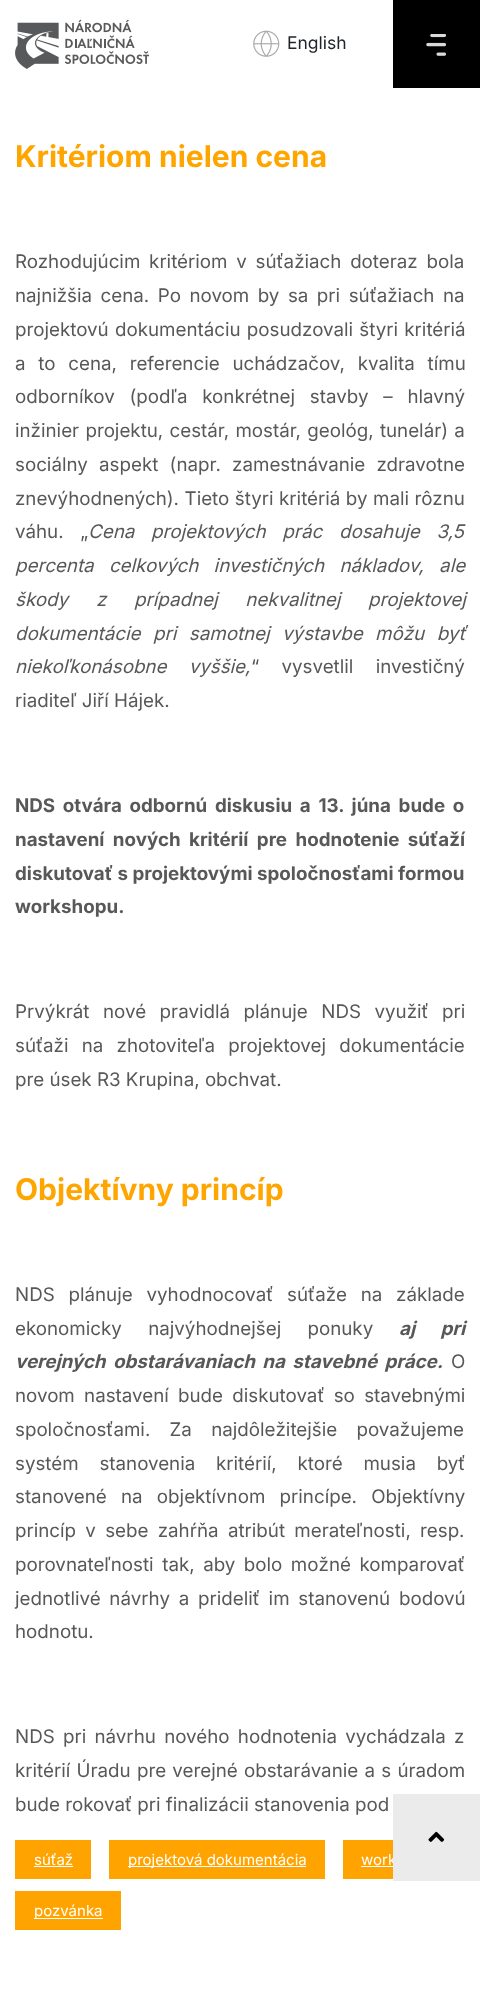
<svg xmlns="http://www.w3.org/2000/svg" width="480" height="1993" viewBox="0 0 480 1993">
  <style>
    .t1 { font: 17.5px Inter; fill: #212529; }
    .t2 { font: bold 30px Inter; fill: #ffa500; }
    .t3 { font: 18.75px Inter; fill: #585858; }
    .t4 { font: italic 18.75px Inter; fill: #585858; }
    .t5 { font: bold 18.75px Inter; fill: #585858; }
    .t6 { font: italic bold 18.75px Inter; fill: #585858; }
    .t7 { font: 15px Inter; fill: #fff; }
  </style>
  <rect width="100%" height="100%" fill="#fff"/>
  <image x="15" y="19" width="134" height="50" href="images/1.png"/>
  <image x="253" y="30" width="27" height="27" href="images/2.png"/>
  <text x="287" y="49" class="t1">English</text>
  <rect x="393" y="0" width="87" height="88" fill="#000"/>
  <image x="426" y="34" width="20" height="22" href="images/3.png"/>
  <text x="15" y="167" class="t2">Kritériom nielen cena</text>
  <text x="15" y="268" word-spacing="3.5" class="t3">Rozhodujúcim kritériom v súťažiach doteraz bola</text>
  <text x="15" y="302" word-spacing="3.25" class="t3">najnižšia cena. Po novom by sa pri súťažiach na</text>
  <text x="15" y="336" word-spacing="1" class="t3">projektovú dokumentáciu posudzovali štyri kritériá</text>
  <text x="15" y="370" word-spacing="7.5" class="t3">a to cena, referencie uchádzačov, kvalita tímu</text>
  <text x="15" y="403" word-spacing="9.5" class="t3">odborníkov (podľa konkrétnej stavby – hlavný</text>
  <text x="15" y="437" word-spacing="1" class="t3">inžinier projektu, cestár, mostár, geológ, tunelár) a</text>
  <text x="15" y="471" word-spacing="6" class="t3">sociálny aspekt (napr. zamestnávanie zdravotne</text>
  <text x="15" y="505" word-spacing="0.25" class="t3">znevýhodnených). Tieto štyri kritériá by mali rôznu</text>
  <text x="15" y="538" word-spacing="11.5" class="t3">váhu. „</text>
  <text x="88" y="538" word-spacing="11.5" class="t4">Cena projektových prác dosahuje 3,5</text>
  <text x="15" y="572" word-spacing="10" class="t4">percenta celkových investičných nákladov, ale</text>
  <text x="15" y="606" word-spacing="22.5" class="t4">škody z prípadnej nekvalitnej projektovej</text>
  <text x="15" y="640" word-spacing="7.25" class="t4">dokumentácie pri samotnej výstavbe môžu byť</text>
  <text x="15" y="673" word-spacing="17" class="t4">niekoľkonásobne vyššie,</text>
  <text x="251" y="673" word-spacing="17" class="t3">“ vysvetlil investičný</text>
  <text x="15" y="707" class="t3">riaditeľ Jiří Hájek.</text>
  <text x="15" y="812" word-spacing="3.25" class="t5">NDS otvára odbornú diskusiu a 13. júna bude o</text>
  <text x="15" y="846" word-spacing="4" class="t5">nastavení nových kritérií pre hodnotenie súťaží</text>
  <text x="15" y="880" class="t5">diskutovať s projektovými spoločnosťami formou</text>
  <text x="15" y="913" class="t5">workshopu.</text>
  <text x="15" y="1018" word-spacing="8.25" class="t3">Prvýkrát nové pravidlá plánuje NDS využiť pri</text>
  <text x="15" y="1052" word-spacing="8" class="t3">súťaži na zhotoviteľa projektovej dokumentácie</text>
  <text x="15" y="1086" class="t3">pre úsek R3 Krupina, obchvat.</text>
  <text x="15" y="1200" class="t2">Objektívny princíp</text>
  <text x="15" y="1301" word-spacing="8.5" class="t3">NDS plánuje vyhodnocovať súťaže na základe</text>
  <text x="15" y="1335" word-spacing="21" class="t3">ekonomicky najvýhodnejšej ponuky</text>
  <text x="399" y="1335" word-spacing="21" class="t6">aj pri</text>
  <text x="15" y="1368" word-spacing="3" class="t6">verejných obstarávaniach na stavebné práce.</text>
  <text x="451" y="1368" class="t3">O</text>
  <text x="15" y="1402" word-spacing="4" class="t3">novom nastavení bude diskutovať so stavebnými</text>
  <text x="15" y="1436" word-spacing="14" class="t3">spoločnosťami. Za najdôležitejšie považujeme</text>
  <text x="15" y="1470" word-spacing="15.5" class="t3">systém stanovenia kritérií, ktoré musia byť</text>
  <text x="15" y="1503" word-spacing="9" class="t3">stanovené na objektívnom princípe. Objektívny</text>
  <text x="15" y="1537" word-spacing="4" class="t3">princíp v sebe zahŕňa atribút merateľnosti, resp.</text>
  <text x="15" y="1571" word-spacing="3.25" class="t3">porovnateľnosti tak, aby bolo možné komparovať</text>
  <text x="15" y="1605" word-spacing="3.5" class="t3">jednotlivé návrhy a prideliť im stanovenú bodovú</text>
  <text x="15" y="1638" class="t3">hodnotu.</text>
  <text x="15" y="1743" word-spacing="3" class="t3">NDS pri návrhu nového hodnotenia vychádzala z</text>
  <text x="15" y="1777" word-spacing="1" class="t3">kritérií Úradu pre verejné obstarávanie a s úradom</text>
  <text x="15" y="1811" class="t3">bude rokovať pri finalizácii stanovenia pod</text>
  <rect x="15" y="1840" width="76" height="39" fill="#ffa300"/>
  <text x="34" y="1865" class="t7">súťaž</text>
  <rect x="34" y="1866" width="39" height="1" fill="#fff"/>
  <rect x="109" y="1840" width="216" height="39" fill="#ffa300"/>
  <rect x="128" y="1866" width="178" height="1" fill="#fff"/>
  <text x="128" y="1865" class="t7">projektová dokumentácia</text>
  <rect x="343" y="1840" width="50" height="39" fill="#ffa300"/>
  <text x="361" y="1865" class="t7">work</text>
  <rect x="361" y="1866" width="32" height="1" fill="#fff"/>
  <rect x="15" y="1891" width="106" height="39" fill="#ffa300"/>
  <rect x="34" y="1918" width="69" height="1" fill="#fff"/>
  <text x="34" y="1916" class="t7">pozvánka</text>
  <rect x="393" y="1794" width="87" height="87" fill="#ebebeb"/>
  <image x="428" y="1831" width="17" height="11" href="images/4.png"/>
</svg>
